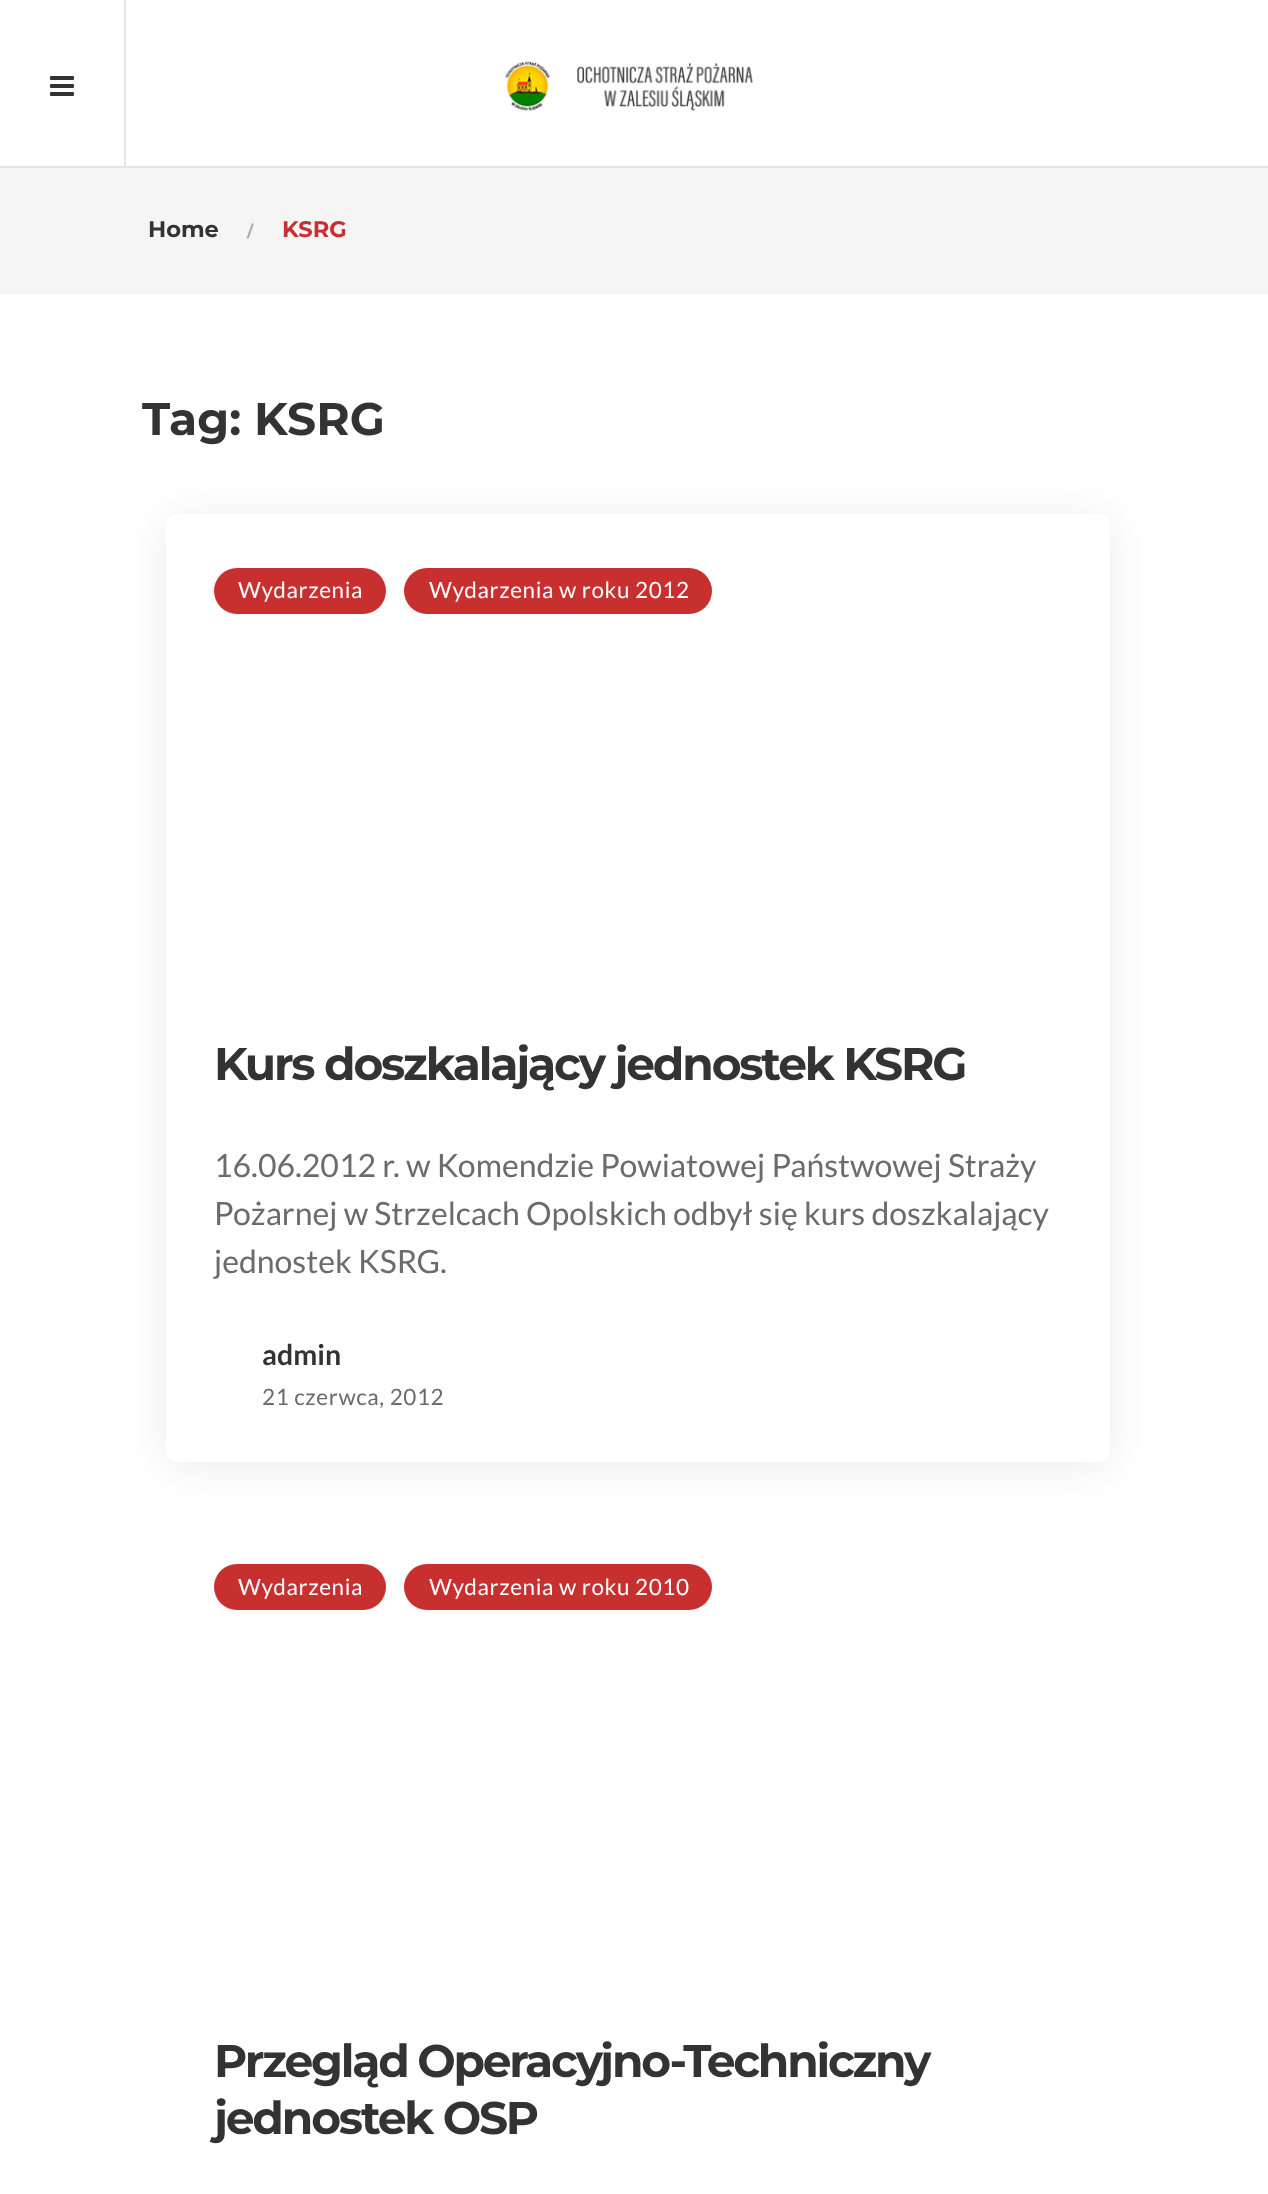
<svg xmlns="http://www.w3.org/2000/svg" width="1268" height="2194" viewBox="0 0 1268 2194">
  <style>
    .t1 { font: bold 22.5px Montserrat; fill: #333; }
    .t2 { font: bold 16px Montserrat; fill: #aeaeae; }
    .t3 { font: bold 22.5px Montserrat; fill: #c82f2f; }
    .t4 { font: bold 45.6px Montserrat; fill: #333; }
    .t5 { font: 22.5px Lato; letter-spacing: 0.6px; fill: #fff; }
    .t6 { font: bold 45.6px Montserrat; letter-spacing: -2.2px; fill: #333; }
    .t7 { font: 32px Lato; fill: #6b6b6b; }
    .t8 { font: bold 28.5px Lato; fill: #333; }
    .t9 { font: 22.5px Lato; letter-spacing: 0.6px; fill: #6b6b6b; }
  </style>
  <rect width="100%" height="100%" fill="#fff"/>
  <rect x="0" y="166" width="1268" height="2" fill="#e3e3e3"/>
  <rect x="124" y="0" width="2" height="166" fill="#e6e6e6"/>
  <image x="50" y="76" width="24" height="20" href="images/1.png"/>
  <image x="505" y="61" width="248" height="51" href="images/2.png"/>
  <rect x="0" y="168" width="1268" height="126" fill="#f5f5f5"/>
  <text x="148" y="237" class="t1">Home</text>
  <text x="247" y="237" class="t2">/</text>
  <text x="282" y="237" class="t3">KSRG</text>
  <text x="142" y="435" class="t4">Tag: KSRG</text>
  <rect x="166" y="518" width="944" height="948" rx="10" fill="#00000014" filter="blur(20px)"/>
  <rect x="166" y="514" width="944" height="948" rx="10" fill="#fff"/>
  <rect x="214" y="568" width="172" height="46" rx="23" fill="#c82f2f"/>
  <text x="238" y="598" class="t5">Wydarzenia</text>
  <rect x="404" y="568" width="308" height="46" rx="23" fill="#c82f2f"/>
  <text x="429" y="598" class="t5">Wydarzenia w roku 2012</text>
  <text x="214" y="1080" class="t6">Kurs doszkalający jednostek KSRG</text>
  <text x="214" y="1177" class="t7">16.06.2012 r. w Komendzie Powiatowej Państwowej Straży</text>
  <text x="214" y="1225" class="t7">Pożarnej w Strzelcach Opolskich odbył się kurs doszkalający</text>
  <text x="214" y="1273" class="t7">jednostek KSRG.</text>
  <text x="262" y="1365" class="t8">admin</text>
  <text x="262" y="1405" class="t9">21 czerwca, 2012</text>
  <rect x="214" y="1564" width="172" height="46" rx="23" fill="#c82f2f"/>
  <text x="238" y="1595" class="t5">Wydarzenia</text>
  <rect x="404" y="1564" width="308" height="46" rx="23" fill="#c82f2f"/>
  <text x="429" y="1595" class="t5">Wydarzenia w roku 2010</text>
  <text x="214" y="2077" word-spacing="-1" class="t6">Przegląd Operacyjno-Techniczny</text>
  <text x="214" y="2134" class="t6">jednostek OSP</text>
</svg>
